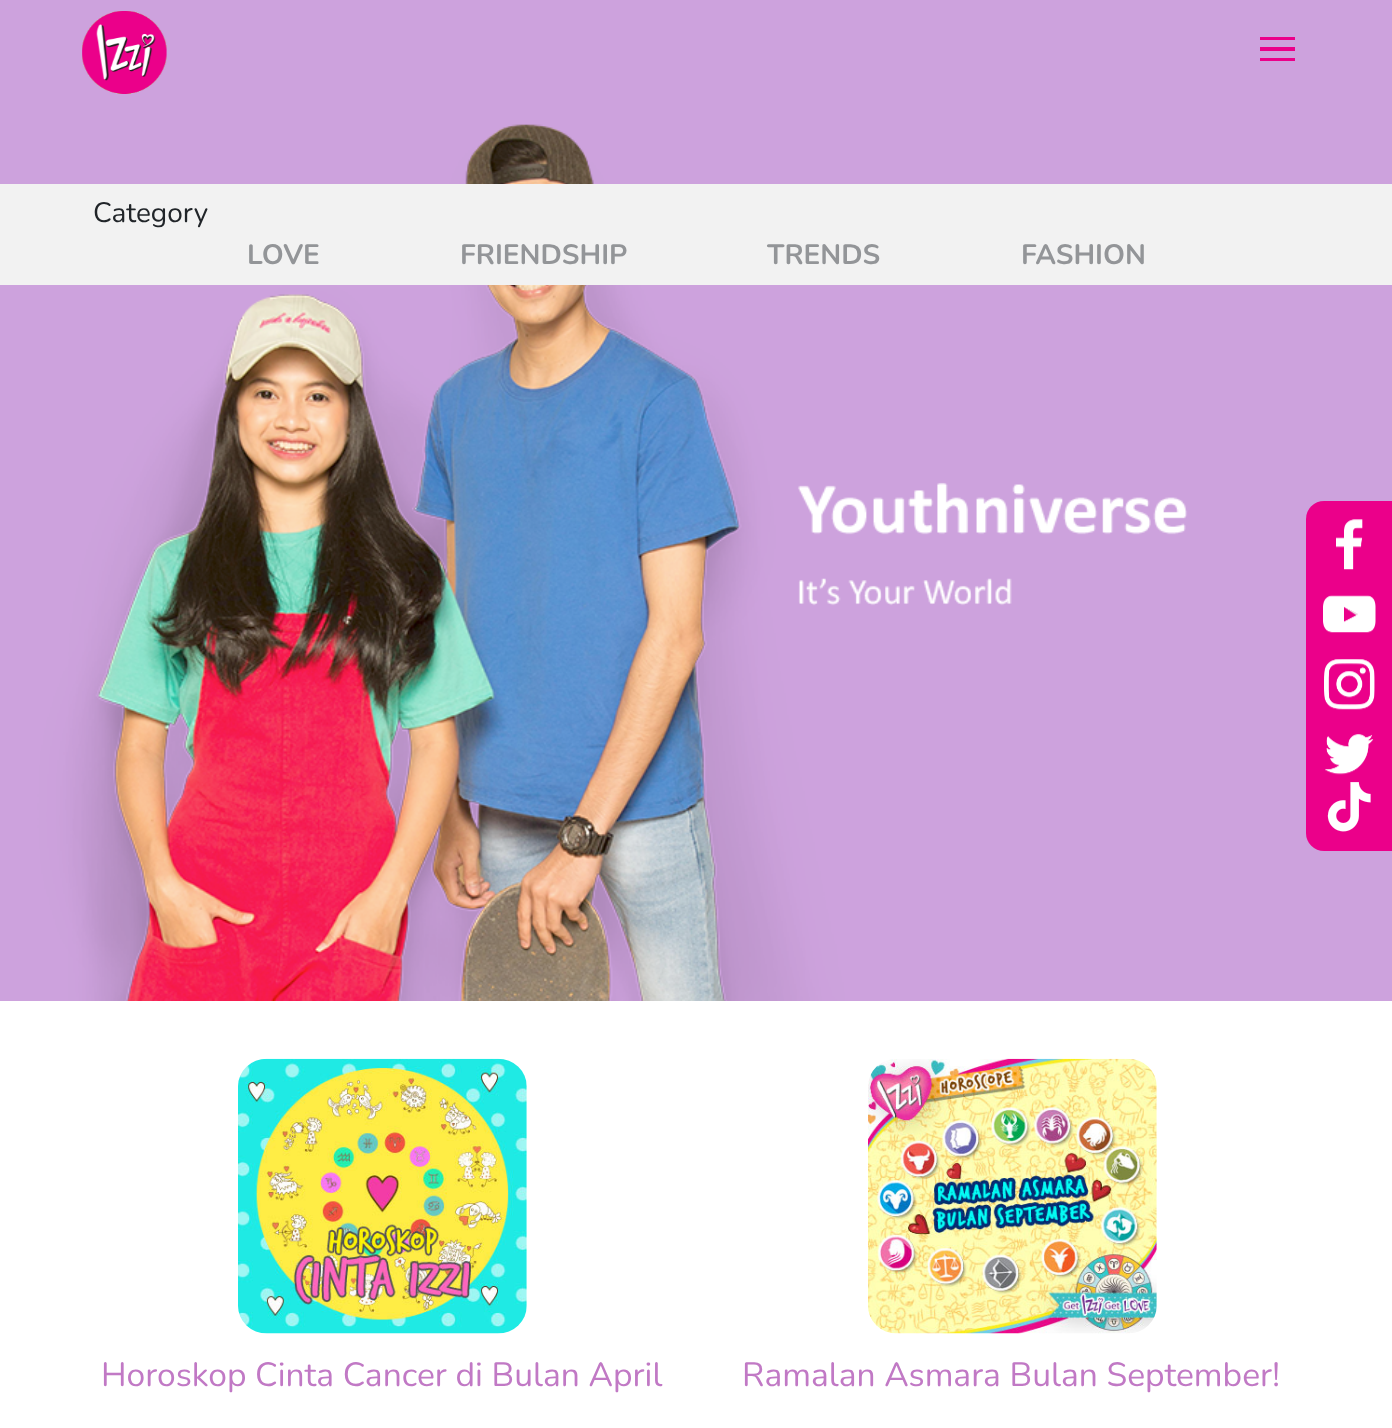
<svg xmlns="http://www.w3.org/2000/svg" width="1392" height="1428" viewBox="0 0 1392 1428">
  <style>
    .t1 { font: 28px Nunito; fill: #212529; }
    .t2 { font: bold 28px Nunito; fill: #939598; }
    .t3 { font: 33.6px Nunito; fill: #c179c5; }
  </style>
  <rect width="100%" height="100%" fill="#fff"/>
  <image x="0" y="0" width="1392" height="1001" href="images/2.png"/>
  <image x="82" y="11" width="85" height="83" href="images/1.png"/>
  <path d="M1260 37V40H1295V37ZM1260 47V51H1295V47ZM1260 58V61H1295V58Z" fill="#eb008a"/>
  <rect x="0" y="184" width="1392" height="101" fill="#f2f2f2"/>
  <text x="93" y="222" class="t1">Category</text>
  <text x="247" y="264" class="t2">LOVE</text>
  <text x="460" y="264" class="t2">FRIENDSHIP</text>
  <text x="767" y="264" class="t2">TRENDS</text>
  <text x="1021" y="264" class="t2">FASHION</text>
  <image x="238" y="1058" width="289" height="276" href="images/3.png"/>
  <text x="101" y="1386" class="t3">Horoskop Cinta Cancer di Bulan April</text>
  <image x="868" y="1058" width="289" height="276" href="images/4.png"/>
  <text x="742" y="1386" class="t3">Ramalan Asmara Bulan September!</text>
  <rect x="1306" y="501" width="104" height="350" rx="18" fill="#eb008a"/>
  <image x="1336" y="519" width="27" height="51" href="images/5.png"/>
  <image x="1323" y="595" width="53" height="38" href="images/6.png"/>
  <image x="1324" y="659" width="51" height="51" href="images/7.png"/>
  <image x="1325" y="734" width="49" height="41" href="images/8.png"/>
  <image x="1327" y="782" width="44" height="50" href="images/9.png"/>
</svg>
